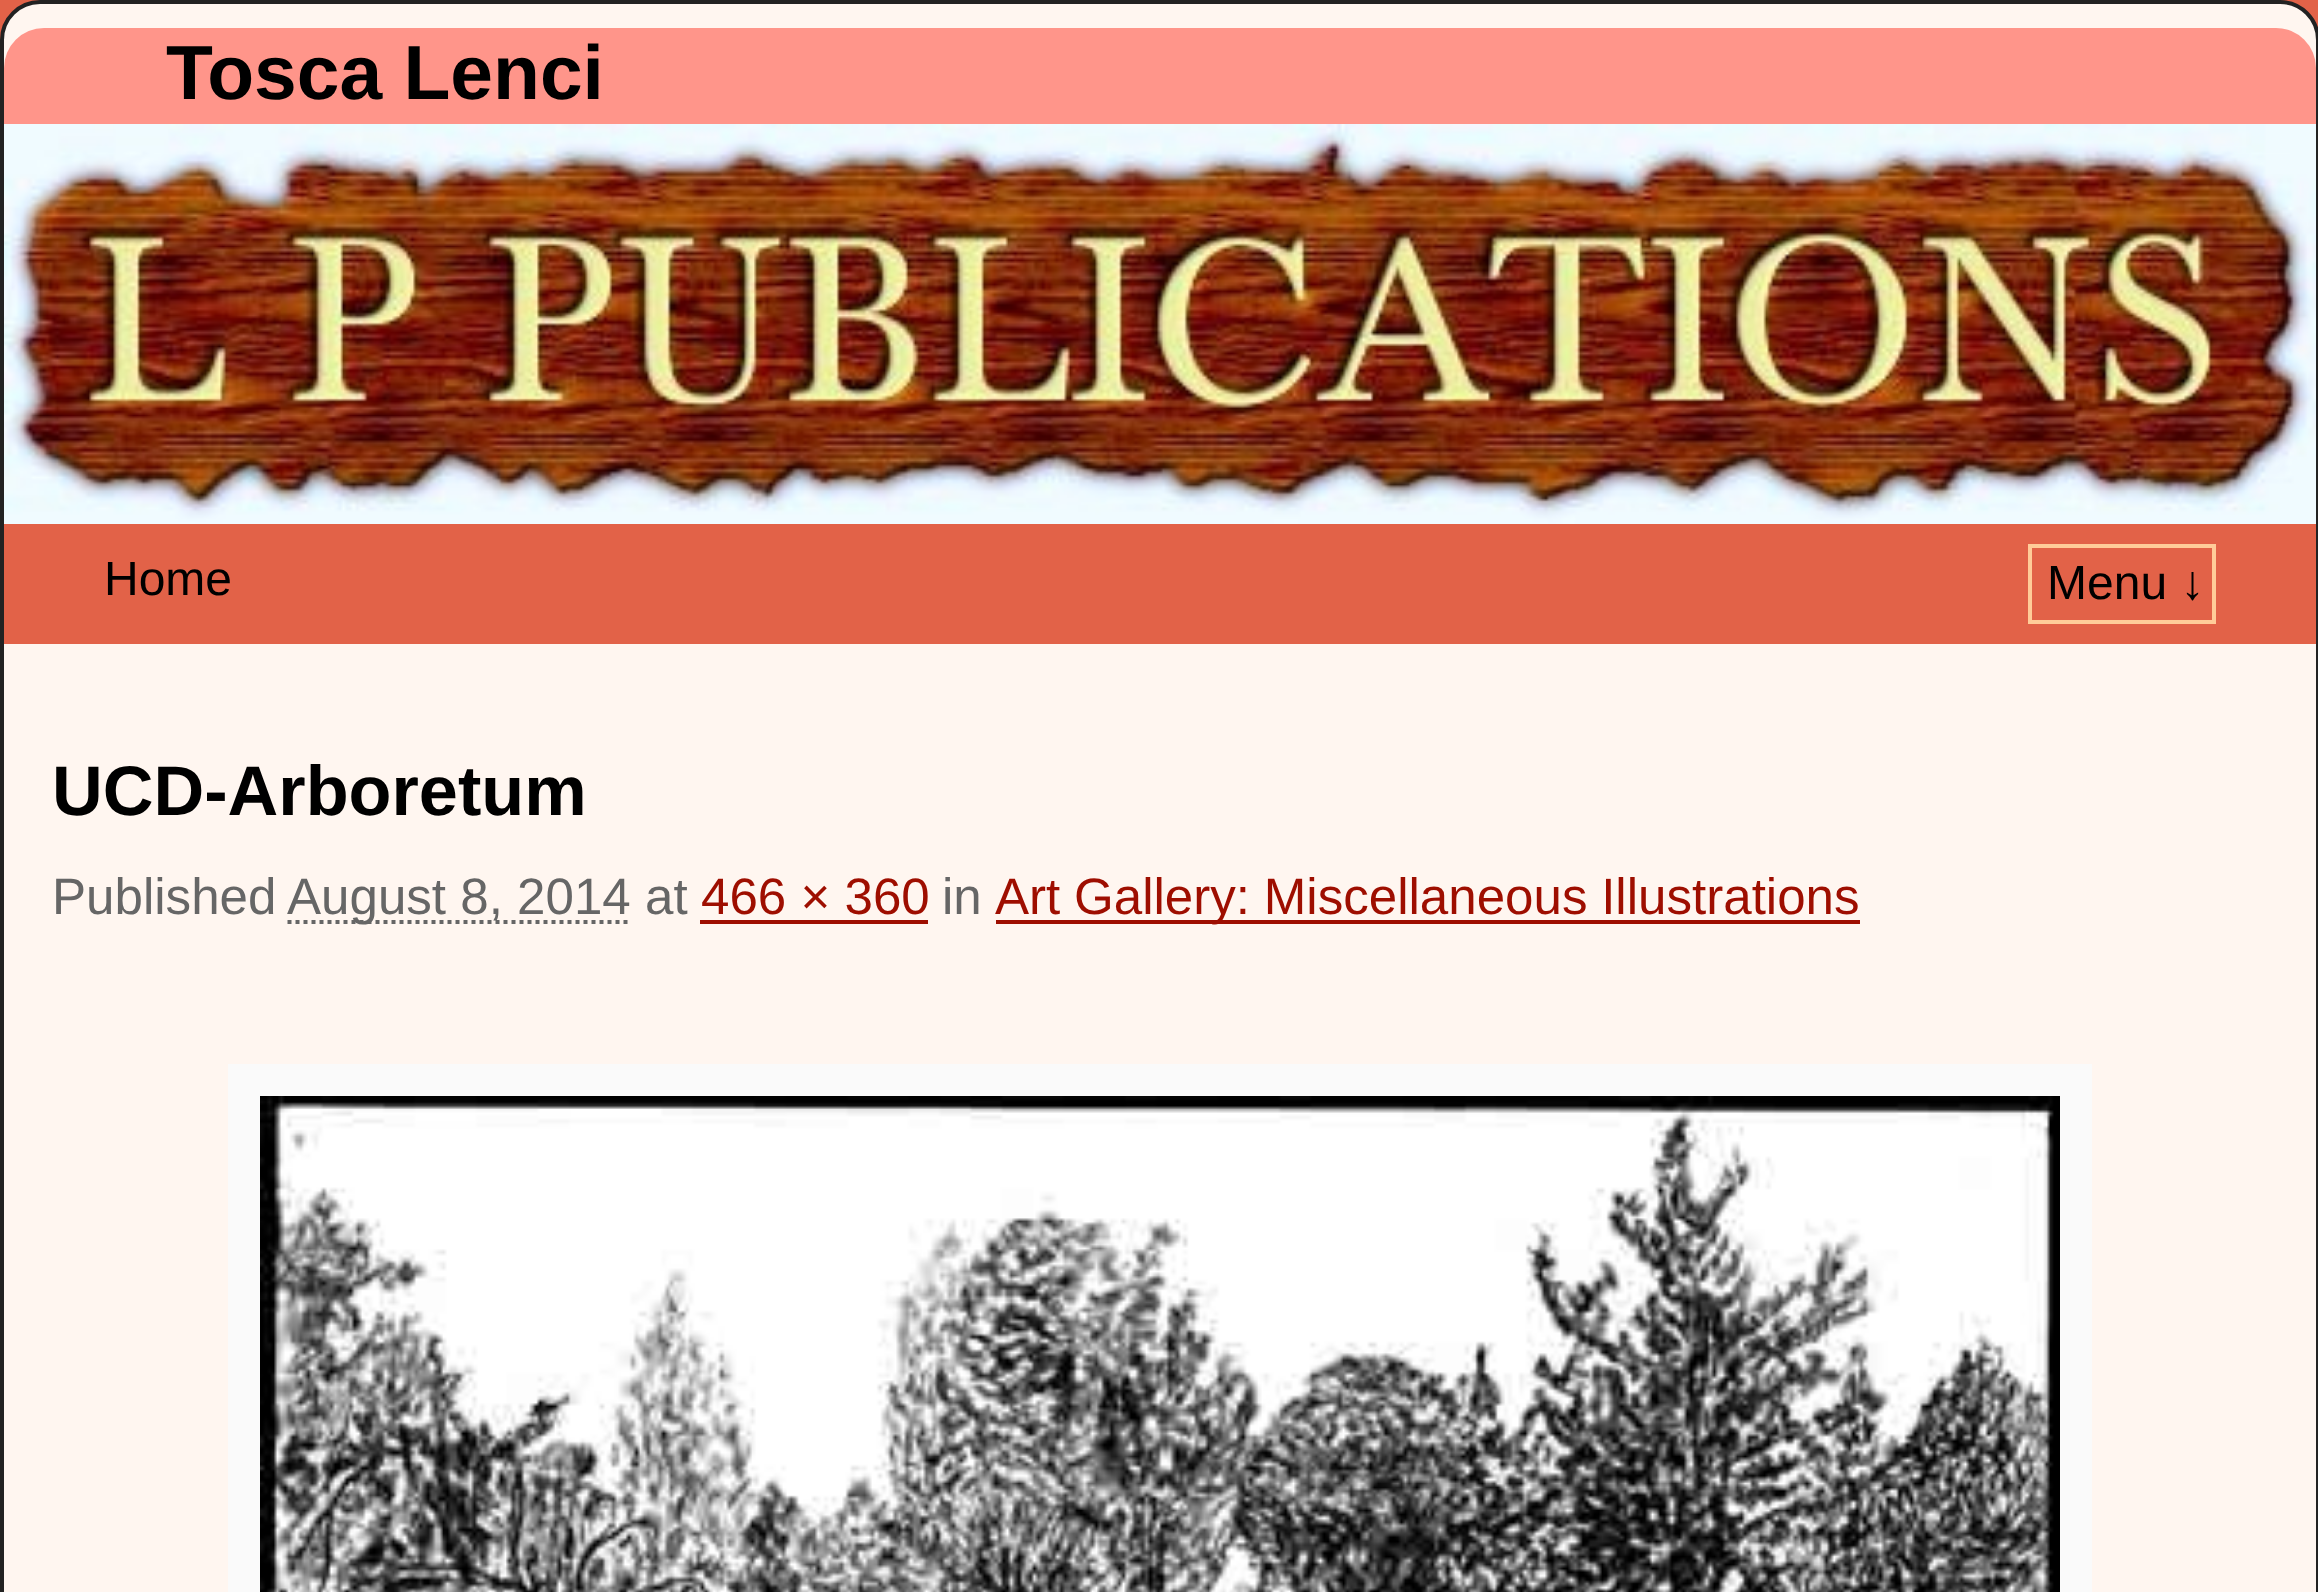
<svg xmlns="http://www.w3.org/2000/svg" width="2318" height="1592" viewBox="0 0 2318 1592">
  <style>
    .t1 { font: bold 76.75px Liberation Sans; fill: #000; }
    .t2 { font: 48px Liberation Sans; fill: #000; }
    .t3 { font: bold 70.25px Liberation Sans; fill: #000; }
    .t4 { font: 51.1px Liberation Sans; fill: #666; }
    .t5 { font: 51.1px Liberation Sans; fill: #9e0e00; }
  </style>
  <rect width="100%" height="100%" fill="#e26248"/>
  <rect x="2" y="2" width="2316" height="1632" rx="38" fill="#fff6f0" stroke="#222" stroke-width="4"/>
  <rect x="4" y="28" width="2312" height="496" rx="40" fill="#ff958a"/>
  <text x="166" y="99" class="t1">Tosca Lenci</text>
  <image x="4" y="124" width="2312" height="400" href="images/1.png"/>
  <rect x="4" y="524" width="2312" height="120" fill="#e26248"/>
  <text x="104" y="595" class="t2">Home</text>
  <rect x="2030" y="546" width="184" height="76" fill="none" stroke="#fc9" stroke-width="4"/>
  <text x="2047" y="599" class="t2">Menu ↓</text>
  <text x="52" y="815" class="t3">UCD-Arboretum</text>
  <text x="52" y="914" class="t4">Published</text>
  <path d="M287.5 922H630.5" fill="none" stroke="#666" stroke-width="4" stroke-dasharray="4 4"/>
  <text x="287" y="914" class="t4">August 8, 2014</text>
  <text x="645" y="914" class="t4">at</text>
  <text x="701" y="914" class="t5">466 × 360</text>
  <rect x="700" y="920" width="228" height="4" fill="#9e0e00"/>
  <text x="942" y="914" class="t4">in</text>
  <rect x="996" y="920" width="864" height="4" fill="#9e0e00"/>
  <text x="995" y="914" word-spacing="-0.5" class="t5">Art Gallery: Miscellaneous Illustrations</text>
  <rect x="228" y="1064" width="1864" height="528" fill="#fafafa"/>
  <image x="260" y="1096" width="1800" height="496" href="images/2.png"/>
</svg>
